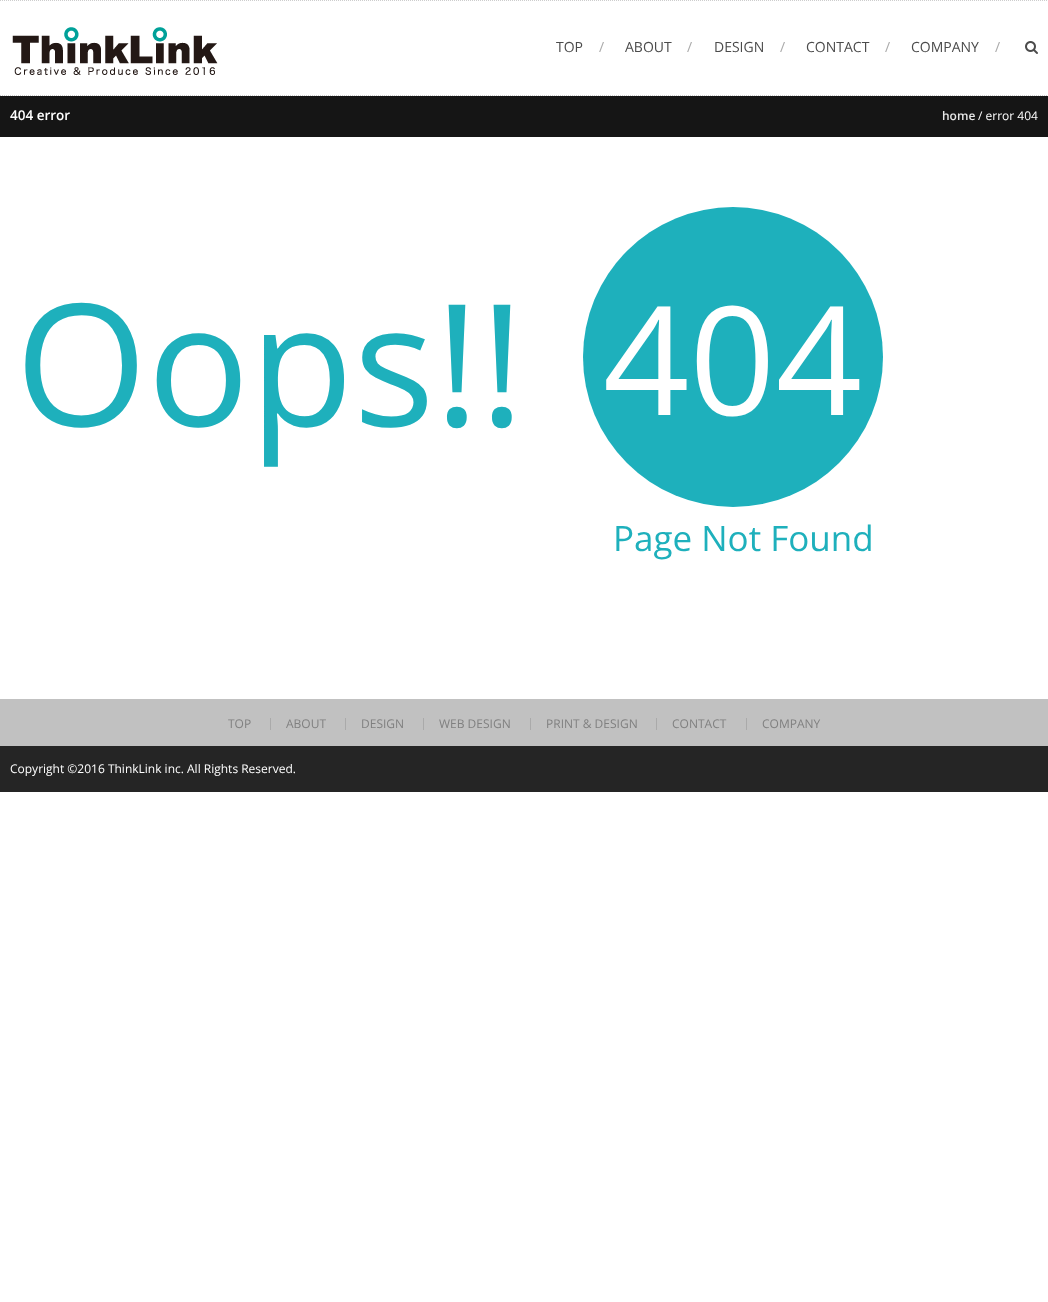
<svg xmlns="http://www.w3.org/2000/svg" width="1048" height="1302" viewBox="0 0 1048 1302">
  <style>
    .t1 { font: 14px Open Sans; fill: #4b4b4b; }
    .t2 { font: 14px Open Sans; fill: #aaa; }
    .t3 { font: 600 13.5px Open Sans; fill: #fff; }
    .t4 { font: 600 12px Open Sans; fill: #e6e6e6; }
    .t5 { font: 12px Open Sans; fill: #fff; }
    .t6 { font: 170px Open Sans; fill: #1eb0bc; }
    .t7 { font: 151px Open Sans; fill: #fff; }
    .t8 { font: 35px Open Sans; fill: #1eb0bc; }
    .t9 { font: 12px Open Sans; fill: #808080; }
  </style>
  <rect width="100%" height="100%" fill="#fff"/>
  <path d="M0 .5H1048" fill="none" stroke="#cdcdcd" stroke-dasharray="1 1"/>
  <path d="M0 95.5H1048" fill="none" stroke="#cdcdcd" stroke-dasharray="1 1"/>
  <image x="12" y="27" width="206" height="48" href="images/1.png"/>
  <text x="556" y="52" class="t1">TOP</text>
  <text x="599" y="52" class="t2">/</text>
  <text x="625" y="52" class="t1">ABOUT</text>
  <text x="687" y="52" class="t2">/</text>
  <text x="714" y="52" class="t1">DESIGN</text>
  <text x="780" y="52" class="t2">/</text>
  <text x="806" y="52" class="t1">CONTACT</text>
  <text x="885" y="52" class="t2">/</text>
  <text x="911" y="52" class="t1">COMPANY</text>
  <text x="995" y="52" class="t2">/</text>
  <image x="1025" y="41" width="13" height="13" href="images/2.png"/>
  <rect x="0" y="96" width="1048" height="41" fill="#151515"/>
  <text x="10" y="120" class="t3">404 error</text>
  <text x="942" y="120" class="t4">home</text>
  <text x="978" y="120" class="t5">/ error 404</text>
  <text x="15" y="426" class="t6">Oops!!</text>
  <circle cx="733" cy="357" r="150" fill="#1eb0bc"/>
  <text x="603" y="415" class="t7">404</text>
  <text x="613" y="551" class="t8">Page Not Found</text>
  <rect x="0" y="699" width="1048" height="47" fill="#c1c1c1"/>
  <text x="228" y="728" class="t9">TOP</text>
  <rect x="270" y="718" width="1" height="12" fill="#aaa"/>
  <text x="286" y="728" class="t9">ABOUT</text>
  <rect x="345" y="718" width="1" height="12" fill="#aaa"/>
  <text x="361" y="728" class="t9">DESIGN</text>
  <rect x="423" y="718" width="1" height="12" fill="#aaa"/>
  <text x="439" y="728" class="t9">WEB DESIGN</text>
  <rect x="530" y="718" width="1" height="12" fill="#aaa"/>
  <text x="546" y="728" class="t9">PRINT &amp; DESIGN</text>
  <rect x="656" y="718" width="1" height="12" fill="#aaa"/>
  <text x="672" y="728" class="t9">CONTACT</text>
  <rect x="746" y="718" width="1" height="12" fill="#aaa"/>
  <text x="762" y="728" class="t9">COMPANY</text>
  <rect x="0" y="746" width="1048" height="46" fill="#252525"/>
  <text x="10" y="773" class="t5">Copyright ©2016 ThinkLink inc. All Rights Reserved.</text>
</svg>
